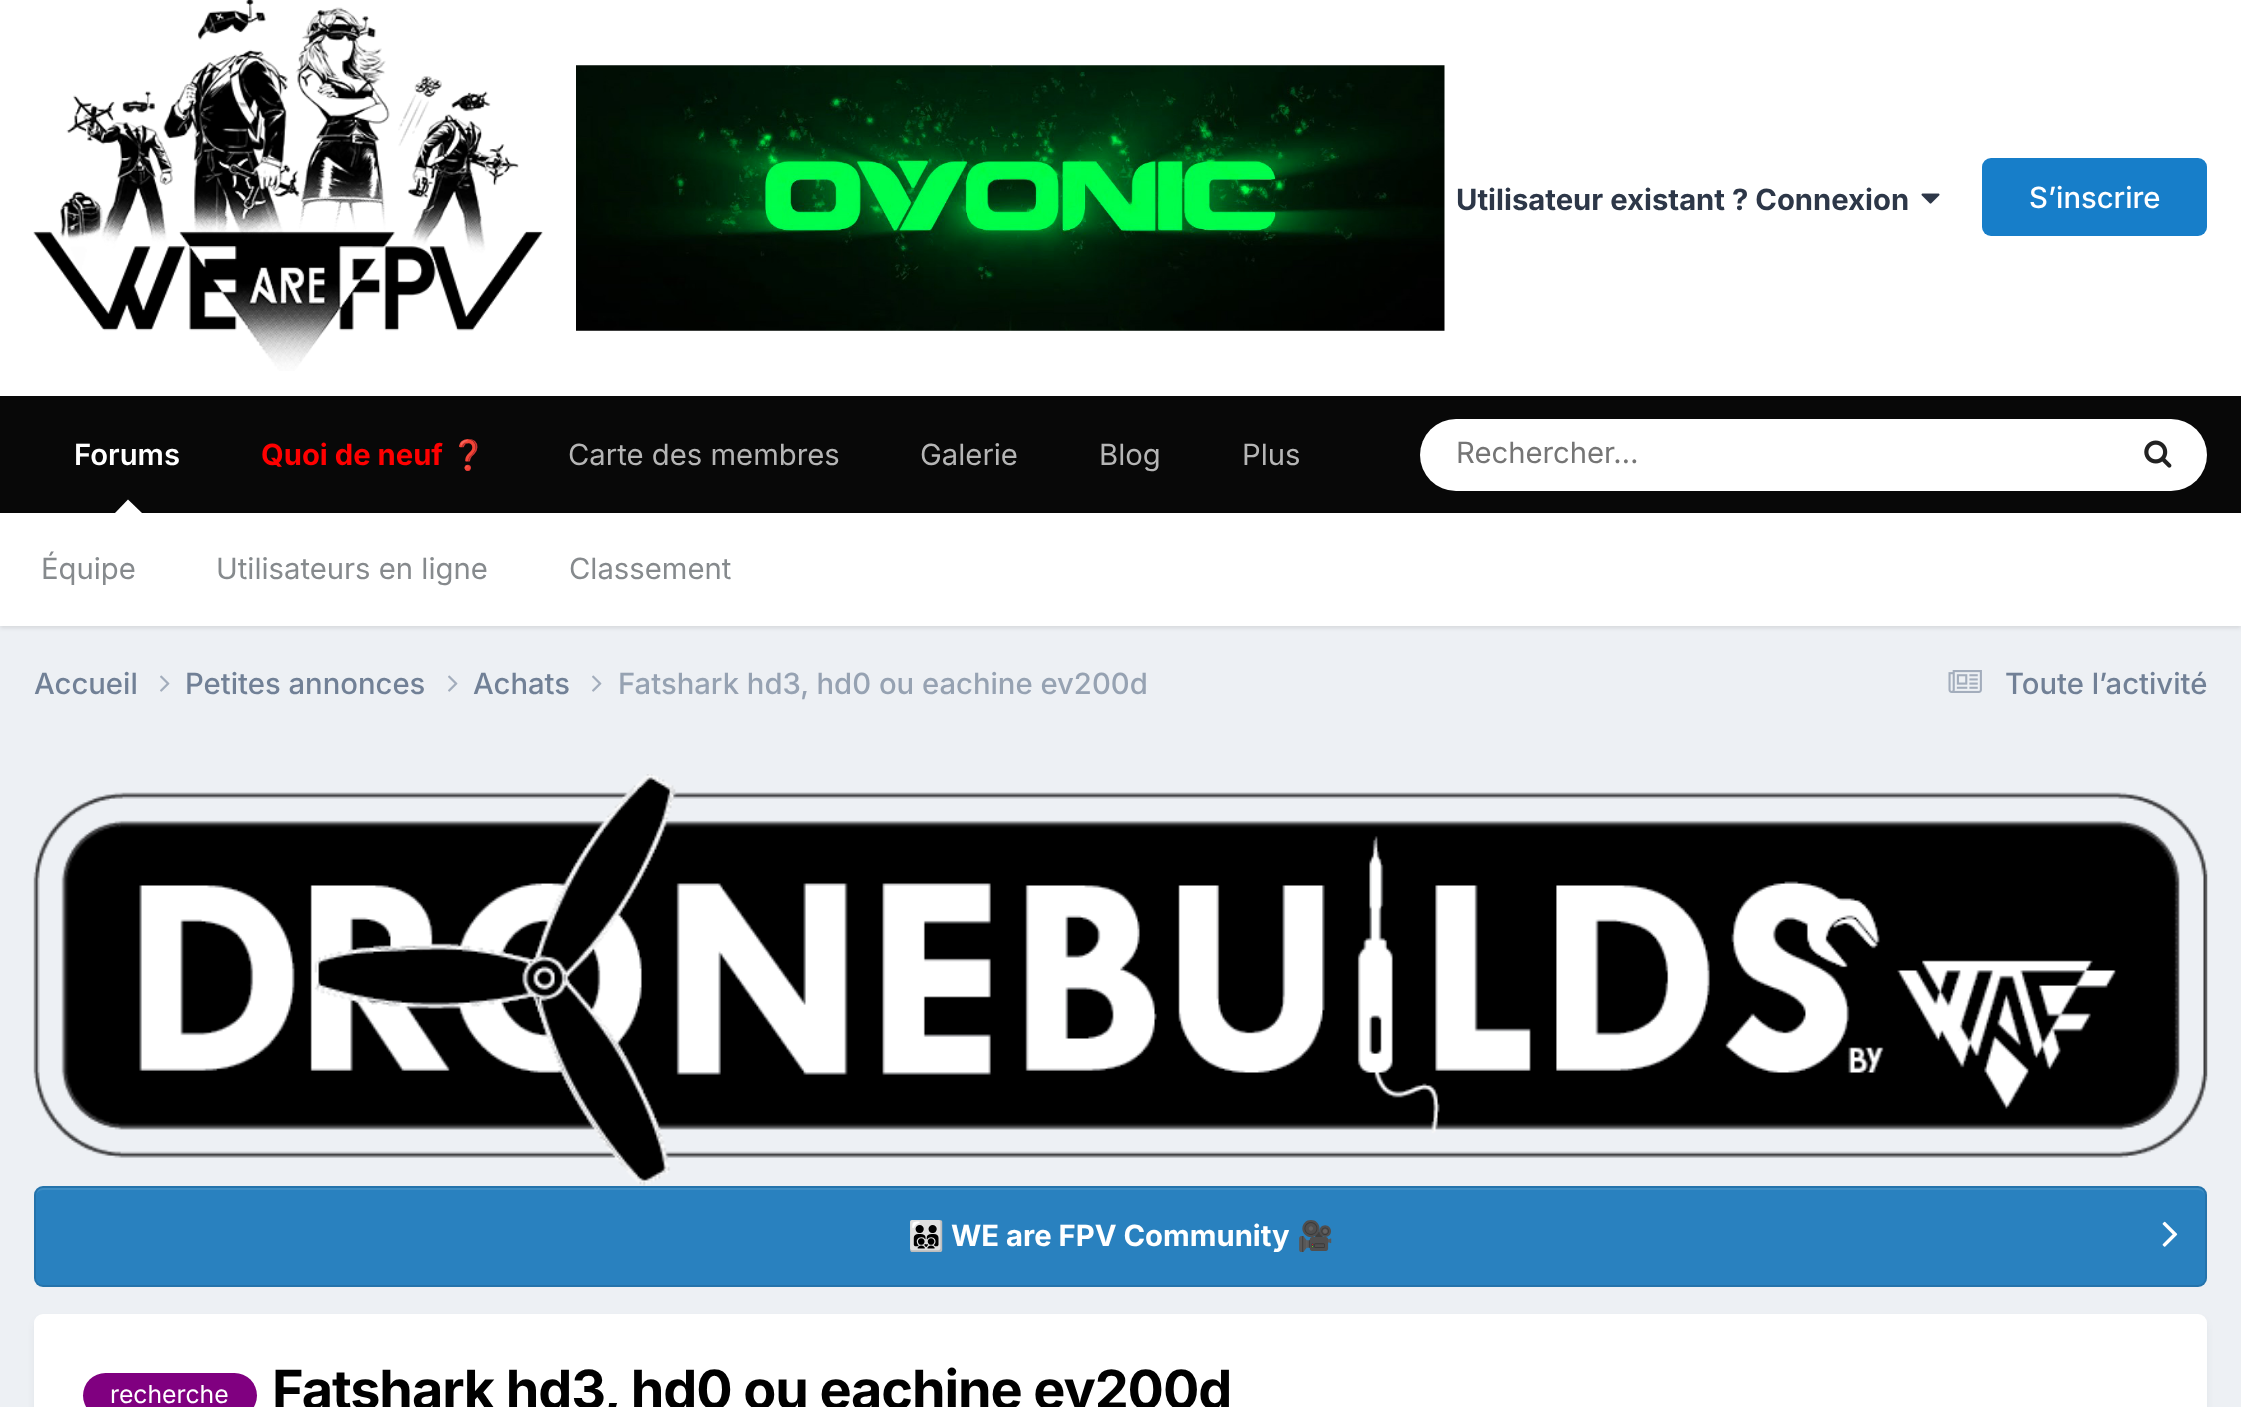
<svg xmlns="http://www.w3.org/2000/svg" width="2241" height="1407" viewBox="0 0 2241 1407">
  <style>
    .t1 { font: bold 29.25px Inter; fill: #2d3748; }
    .t2 { font: 500 29.25px Inter; fill: #fff; }
    .t3 { font: bold 29.25px Inter; fill: #f00; }
    .t4 { font: bold 29.25px Noto Color Emoji; fill: #f00; }
    .t5 { font: 600 29.25px Inter; fill: #fff; }
    .t6 { font: 29.25px Inter; fill: #868a8d; }
    .t7 { font: 29.25px Inter; fill: #b5b5b5; }
    .t8 { font: 29.25px Inter; fill: #757575; }
    .t9 { font: 500 29.25px Inter; fill: #718096; }
    .t10 { font: 500 29.25px Inter; fill: #96a2b2; }
    .t11 { font: bold 29.25px Noto Color Emoji; fill: #fff; }
    .t12 { font: bold 29.25px Inter; fill: #fff; }
    .t13 { font: 24.75px Inter; fill: #fff; }
    .t14 { font: bold 54px Inter; letter-spacing: -1.1px; fill: #000; }
  </style>
  <rect width="100%" height="100%" fill="#edf0f4"/>
  <rect x="0" y="0" width="2241" height="396" fill="#fff"/>
  <image x="33" y="0" width="510" height="371" href="images/1.png"/>
  <image x="576" y="65" width="869" height="266" href="images/2.png"/>
  <text x="1456" y="210" class="t1">Utilisateur existant ? Connexion</text>
  <image x="1921" y="193" width="19" height="11" href="images/3.png"/>
  <rect x="1982" y="158" width="225" height="78" rx="9" fill="#177ec9"/>
  <text x="2029" y="208" class="t2">S’inscrire</text>
  <rect x="0" y="396" width="2241" height="117" fill="#080808"/>
  <text x="261" y="465" class="t3">Quoi de neuf</text>
  <text x="450" y="465" class="t4">❓</text>
  <text x="74" y="465" class="t5">Forums</text>
  <rect x="0" y="515" width="2241" height="113" fill="#0000001a" filter="blur(2px)"/>
  <path d="M142 513H115L128 499.5Z" fill="#fff"/>
  <rect x="0" y="513" width="2241" height="113" fill="#fff"/>
  <text x="41" y="579" class="t6">Équipe</text>
  <text x="216" y="579" class="t6">Utilisateurs en ligne</text>
  <text x="569" y="579" class="t6">Classement</text>
  <text x="568" y="465" class="t7">Carte des membres</text>
  <text x="920" y="465" class="t7">Galerie</text>
  <text x="1099" y="465" class="t7">Blog</text>
  <text x="1242" y="465" class="t7">Plus</text>
  <rect x="1420" y="419" width="787" height="72" rx="36" fill="#fff"/>
  <text x="1456" y="463" class="t8">Rechercher…</text>
  <image x="2144" y="440" width="28" height="28" href="images/4.png"/>
  <text x="34" y="694" class="t9">Accueil</text>
  <image x="160" y="675" width="10" height="17" href="images/5.png"/>
  <text x="185" y="694" class="t9">Petites annonces</text>
  <image x="448" y="675" width="10" height="17" href="images/5.png"/>
  <text x="473" y="694" class="t9">Achats</text>
  <image x="592" y="675" width="10" height="17" href="images/5.png"/>
  <text x="618" y="694" class="t10">Fatshark hd3, hd0 ou eachine ev200d</text>
  <image x="1948" y="670" width="34" height="23" href="images/6.png"/>
  <text x="2005" y="694" class="t9">Toute l’activité</text>
  <image x="33" y="774" width="2175" height="412" href="images/7.png"/>
  <rect x="34" y="1186" width="2173" height="101" rx="9" fill="#2981bf"/>
  <path d="M43 1190H2198C2202 1190 2205 1193 2205 1197C2205 1193 2203 1188 2198 1188H43C38 1188 36 1193 36 1197C36 1193 39 1190 43 1190Z" fill="#3e8ec5"/>
  <rect x="35" y="1187" width="2171" height="99" rx="8" fill="none" stroke="#0000001a" stroke-width="2"/>
  <text x="908" y="1246" class="t11">👨‍👨‍👦‍👦</text>
  <text x="951" y="1246" class="t12">WE are FPV Community</text>
  <text x="1297" y="1246" class="t11">🎥</text>
  <image x="2162" y="1221" width="16" height="26" href="images/8.png"/>
  <rect x="36" y="1321" width="2169" height="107" rx="7" fill="#2d37481a" filter="blur(4.5px)"/>
  <rect x="34" y="1314" width="2173" height="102" rx="9" fill="#fff"/>
  <rect x="83" y="1373" width="174" height="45" rx="22.5" fill="#800080"/>
  <text x="110" y="1403" class="t13">recherche</text>
  <text x="272" y="1409" class="t14">Fatshark hd3, hd0 ou eachine ev200d</text>
</svg>
